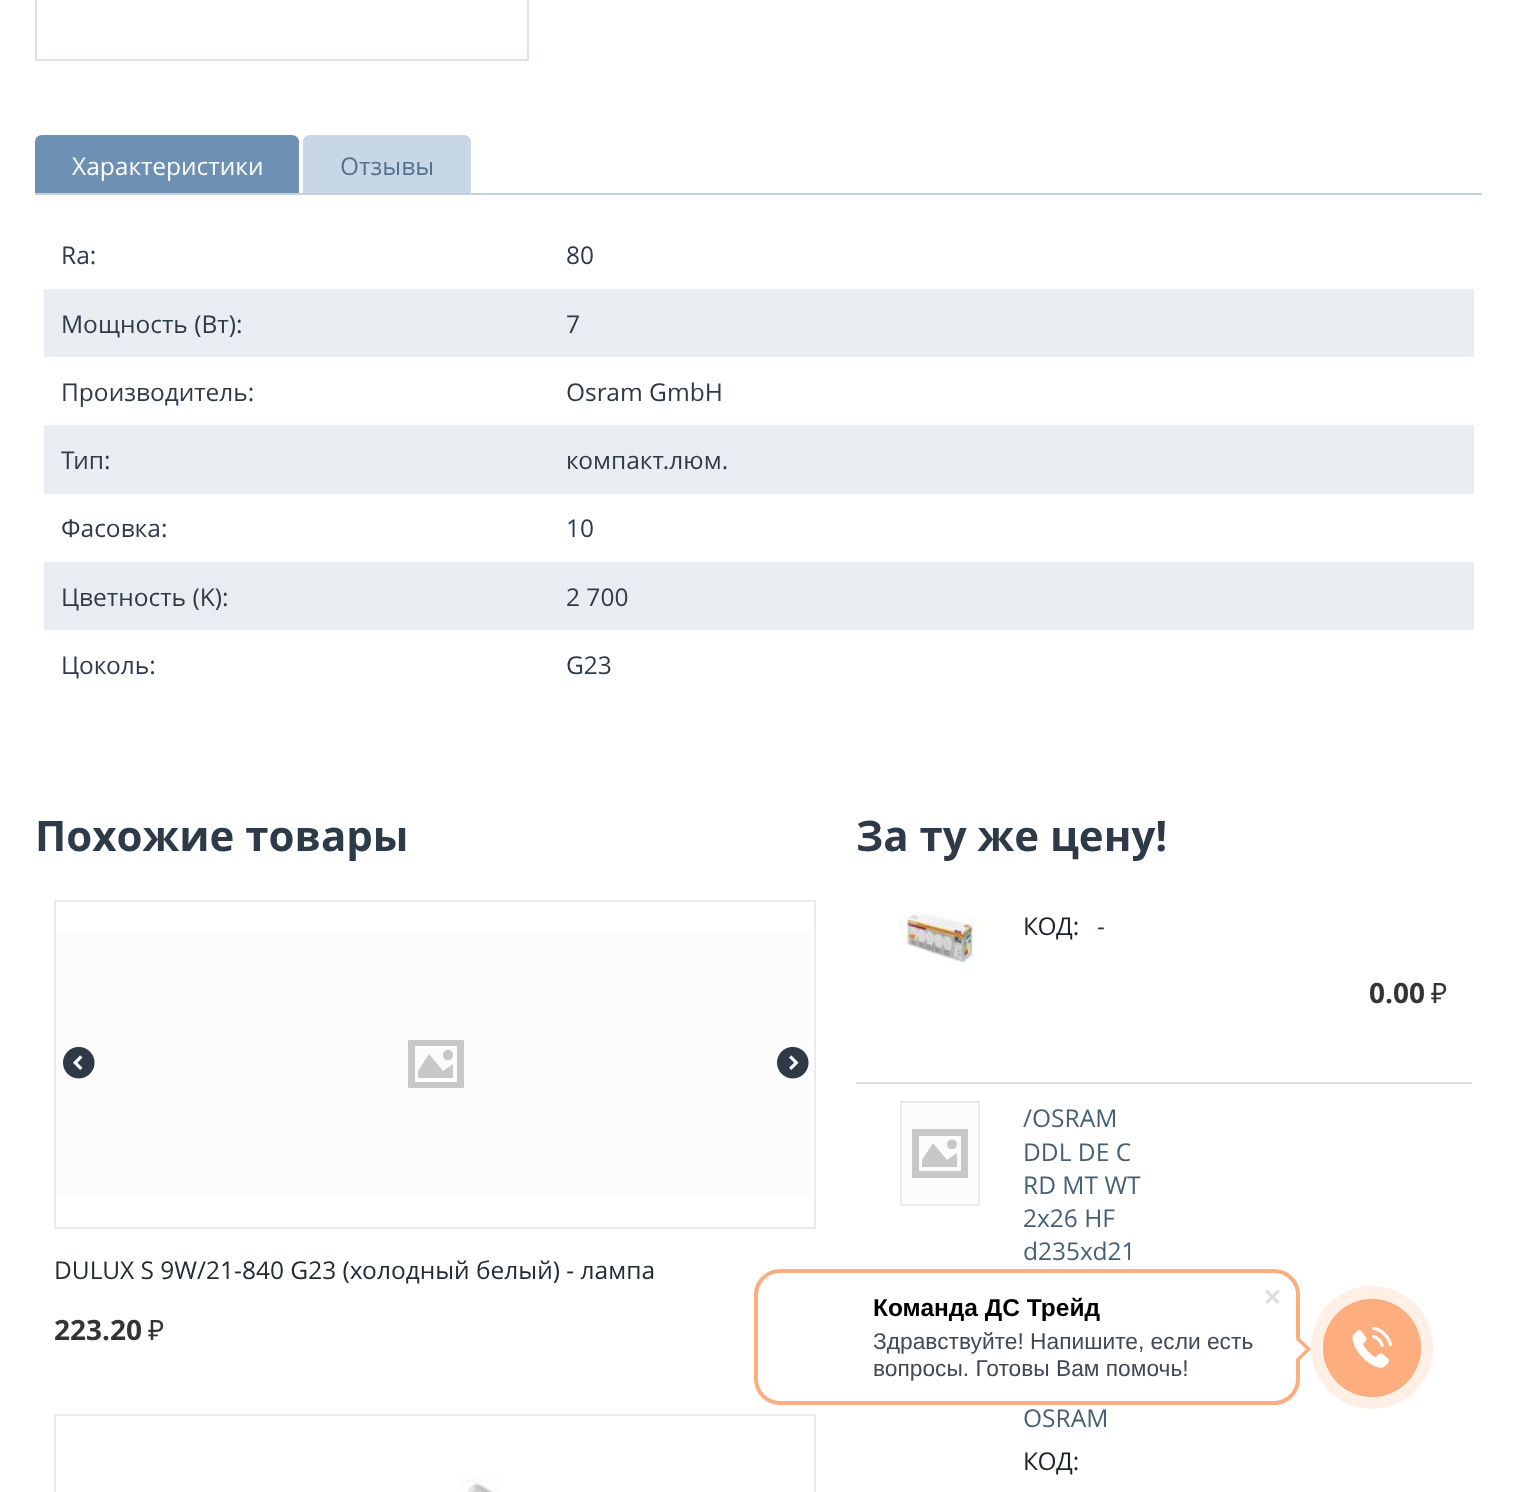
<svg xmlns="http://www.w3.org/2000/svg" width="1517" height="1492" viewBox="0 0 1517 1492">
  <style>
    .t1 { font: 24.5px Open Sans; fill: #fff; }
    .t2 { font: 24.5px Open Sans; fill: #56718c; }
    .t3 { font: 24.5px Open Sans; fill: #2e3a47; }
    .t4 { font: bold 42px Open Sans; fill: #2e3a47; }
    .t5 { font: 24.5px Open Sans; fill: #222b32; }
    .t6 { font: bold 28px Open Sans; fill: #343434; }
    .t7 { font: 28px Noto Sans; fill: #343434; }
    .t8 { font: 24.5px Open Sans; fill: #1a2128; }
    .t9 { font: 24.5px Open Sans; fill: #465f73; }
    .t10 { font: bold 24.5px Liberation Sans; fill: #000; }
    .t11 { font: 22.75px Liberation Sans; fill: #424956; }
  </style>
  <rect width="100%" height="100%" fill="#fff"/>
  <rect x="36" y="-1" width="492" height="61" fill="none" stroke="#dce3ea" stroke-width="2"/>
  <rect x="35" y="193" width="1447" height="2" fill="#c6d1dd"/>
  <path d="M42 135H292C296 135 299 138 299 142V193H35V142C35 138 38 135 42 135Z" fill="#6d90b3"/>
  <text x="72" y="175" class="t1">Характеристики</text>
  <path d="M310 135H464C468 135 471 138 471 142V193H303V142C303 138 306 135 310 135Z" fill="#c8d7e6"/>
  <text x="340" y="175" class="t2">Отзывы</text>
  <text x="61" y="264" class="t3">Ra:</text>
  <text x="566" y="264" class="t3">80</text>
  <rect x="44" y="289" width="1430" height="68" fill="#e9edf2"/>
  <text x="61" y="333" class="t3">Мощность (Вт):</text>
  <text x="566" y="333" class="t3">7</text>
  <text x="61" y="401" class="t3">Производитель:</text>
  <text x="566" y="401" class="t3">Osram GmbH</text>
  <rect x="44" y="425" width="1430" height="69" fill="#e9edf2"/>
  <text x="61" y="469" class="t3">Тип:</text>
  <text x="566" y="469" class="t3">компакт.люм.</text>
  <text x="61" y="537" class="t3">Фасовка:</text>
  <text x="566" y="537" class="t3">10</text>
  <rect x="44" y="562" width="1430" height="68" fill="#e9edf2"/>
  <text x="61" y="606" class="t3">Цветность (K):</text>
  <text x="566" y="606" class="t3">2 700</text>
  <text x="61" y="674" class="t3">Цоколь:</text>
  <text x="566" y="674" class="t3">G23</text>
  <text x="35" y="851" class="t4">Похожие товары</text>
  <rect x="55" y="901" width="760" height="327" fill="none" stroke="#ebebeb" stroke-width="2"/>
  <rect x="56" y="933" width="758" height="262" fill="#fcfcfc"/>
  <path d="M457 1046H415V1082H457ZM464 1040V1088H408V1040ZM453 1078H418V1071L429 1054L443 1071L453 1064ZM443 1055C443 1062 453 1062 453 1055C453 1048 443 1048 443 1055Z" fill="#c8c8c8"/>
  <image x="63" y="1046" width="32" height="33" href="images/1.png"/>
  <image x="777" y="1046" width="32" height="33" href="images/2.png"/>
  <text x="54" y="1279" class="t5">DULUX S 9W/21-840 G23 (холодный белый) - лампа</text>
  <text x="54" y="1340" class="t6">223.20</text>
  <text x="148" y="1340" class="t7">₽</text>
  <rect x="55" y="1415" width="760" height="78" fill="none" stroke="#ebebeb" stroke-width="2"/>
  <image x="459" y="1475" width="40" height="17" href="images/3.png"/>
  <text x="856" y="851" class="t4">За ту же цену!</text>
  <rect x="856" y="1082" width="616" height="2" fill="#dfdfdf"/>
  <image x="899" y="912" width="81" height="52" href="images/4.png"/>
  <text x="1023" y="935" class="t8">КОД:</text>
  <text x="1097" y="935" class="t3">-</text>
  <text x="1369" y="1003" class="t6">0.00</text>
  <text x="1431" y="1003" class="t7">₽</text>
  <rect x="901" y="1102" width="78" height="103" fill="#fcfcfc" stroke="#ebebeb" stroke-width="2"/>
  <path d="M961 1136H919V1171H961ZM968 1129V1178H912V1129ZM957 1167H922V1160L933 1143L947 1160L957 1153ZM947 1144C947 1151 957 1151 957 1144C957 1138 947 1138 947 1144Z" fill="#c8c8c8"/>
  <text x="1023" y="1127" class="t9">/OSRAM</text>
  <text x="1023" y="1161" class="t9">DDL DE C</text>
  <text x="1023" y="1194" class="t9">RD MT WT</text>
  <text x="1023" y="1227" class="t9">2x26 HF</text>
  <text x="1023" y="1260" class="t9">d235xd21</text>
  <text x="1023" y="1427" class="t9">OSRAM</text>
  <text x="1023" y="1470" class="t8">КОД:</text>
  <rect x="756" y="1271" width="542" height="132" rx="24" fill="none" stroke="#fdad7e" stroke-width="4"/>
  <text x="873" y="1316" class="t10">Команда ДС Трейд</text>
  <text x="873" y="1349" class="t11">Здравствуйте! Напишите, если есть</text>
  <text x="873" y="1376" class="t11">вопросы. Готовы Вам помочь!</text>
  <image x="1265" y="1289" width="15" height="15" href="images/5.png"/>
  <path d="M1286 1349L1298.5 1337L1311 1349L1298.5 1361.5Z" fill="#fff"/>
  <path d="M1296 1339.5L1298.5 1337L1311 1349L1308.5 1351.5Z" fill="#fdad7e"/>
  <path d="M1296 1359L1308.5 1347L1311 1349L1298.5 1361.5Z" fill="#fdad7e"/>
  <rect x="1311" y="1286" width="122" height="123" rx="61" fill="#ffefe5"/>
  <circle cx="1372" cy="1348" r="48.5" fill="none" stroke="#fdad7e"/>
  <circle cx="1372" cy="1348" r="49" fill="#fdad7e"/>
  <image x="1352" y="1327" width="40" height="41" href="images/6.png"/>
</svg>
